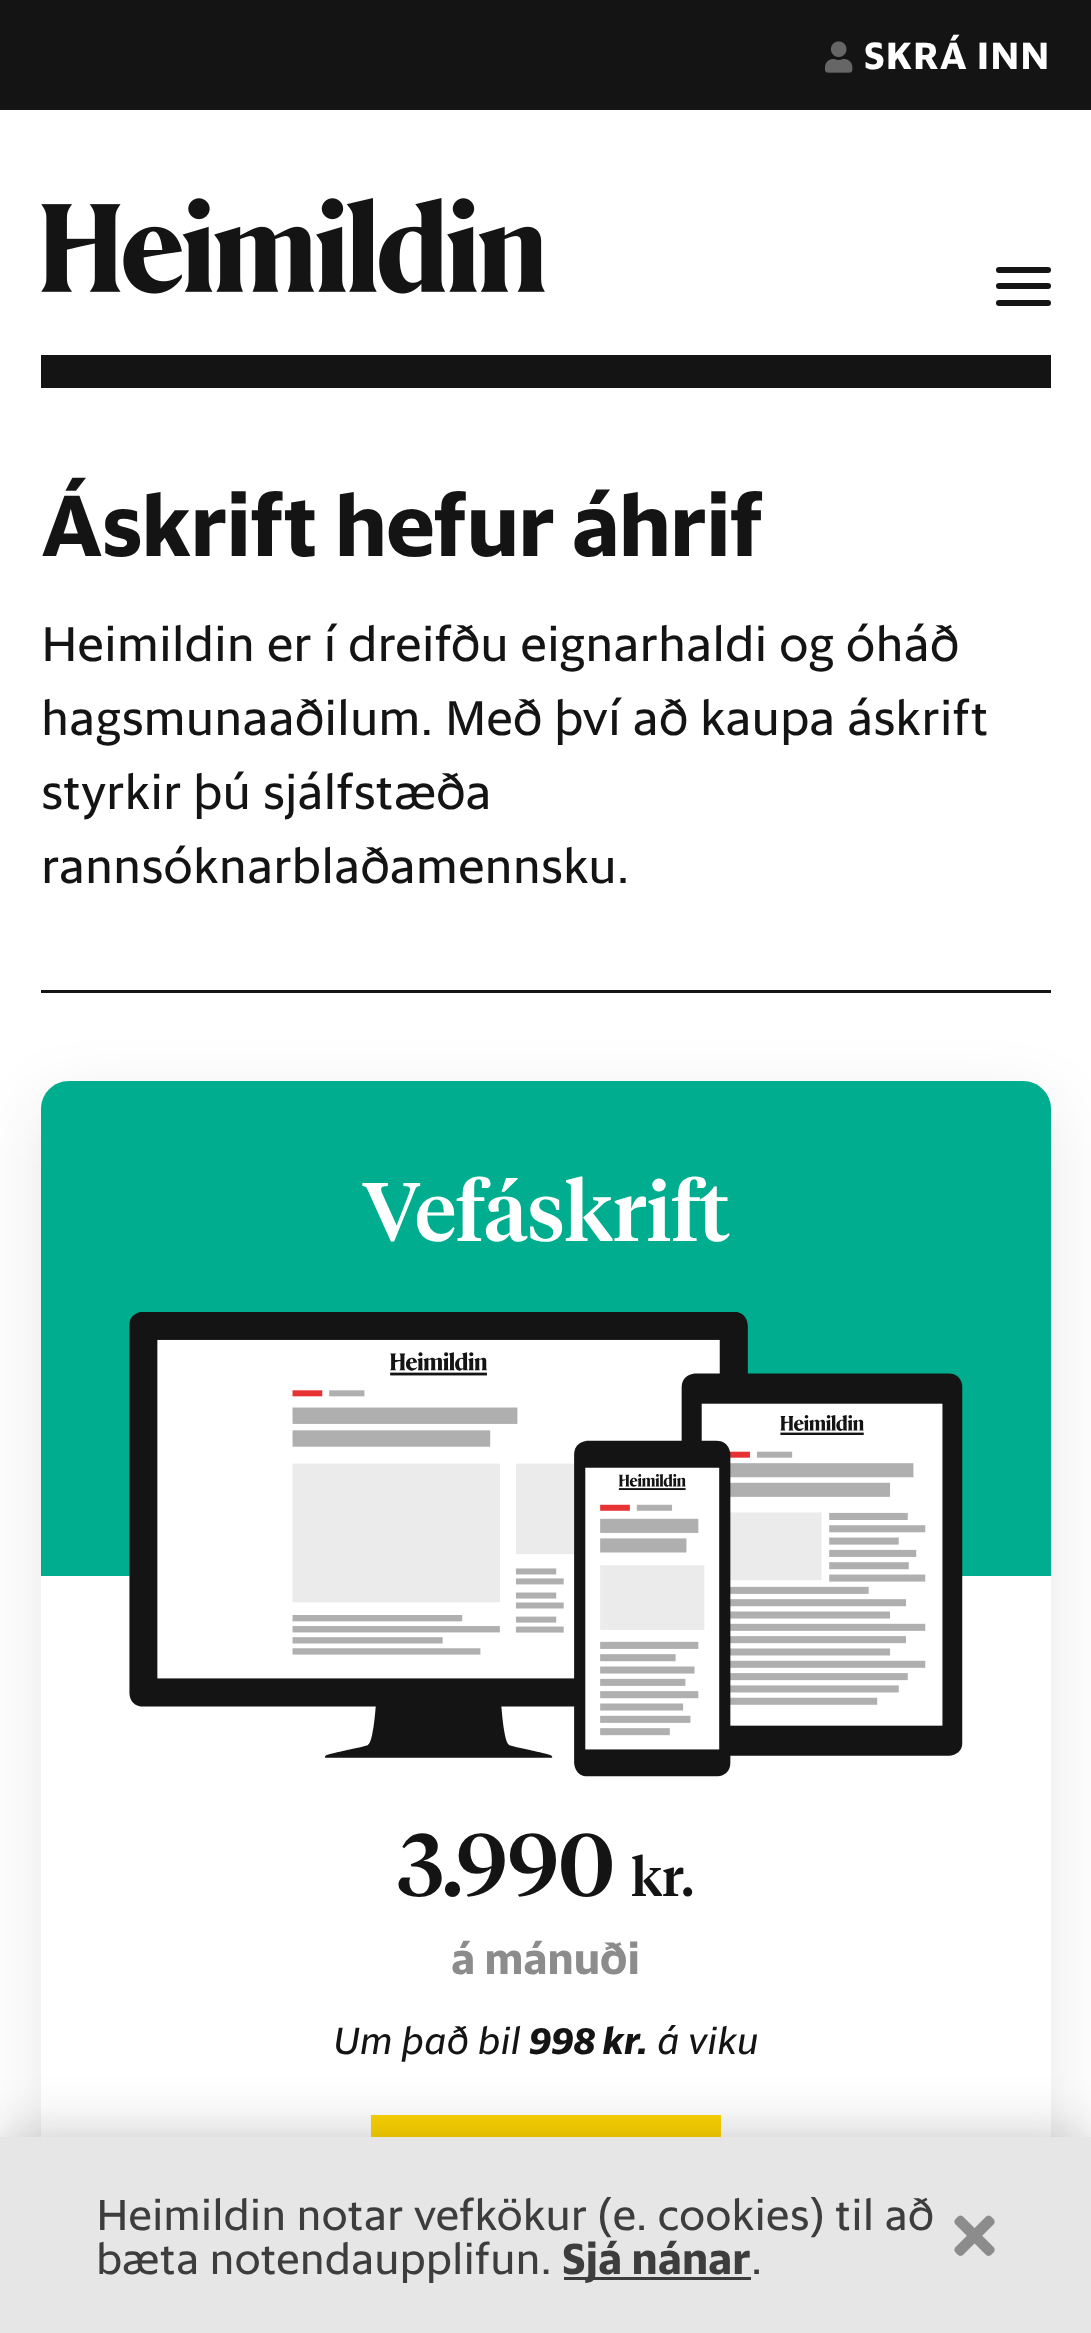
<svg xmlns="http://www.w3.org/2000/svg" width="1091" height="2333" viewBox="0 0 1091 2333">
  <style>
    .t1 { font: bold 38.5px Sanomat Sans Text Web; letter-spacing: 1px; fill: #fff; }
    .t2 { font: bold 88px Sanomat Sans Text Web; letter-spacing: -1.1px; fill: #141414; }
    .t3 { font: 49.5px Sanomat Sans Text Web; fill: #141414; }
    .t4 { font: 500 82.5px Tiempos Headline; fill: #fff; }
    .t5 { font: 500 88px Tiempos Headline; fill: #141414; }
    .t6 { font: 500 53px Tiempos Headline; fill: #141414; }
    .t7 { font: bold 44px Sanomat Sans Text Web; fill: #8c8c8c; }
    .t8 { font: italic 38.5px Sanomat Sans Text Web; fill: #141414; }
    .t9 { font: italic bold 38.5px Sanomat Sans Text Web; fill: #141414; }
    .t10 { font: 44px Sanomat Sans Text Web; fill: #3d3d3d; }
    .t11 { font: bold 44px Sanomat Sans Text Web; fill: #3d3d3d; }
  </style>
  <rect width="100%" height="100%" fill="#fff"/>
  <rect x="0" y="0" width="1091" height="110" fill="#141414"/>
  <image x="825" y="41" width="28" height="32" href="images/1.png"/>
  <text x="864" y="69" class="t1">SKRÁ INN</text>
  <rect x="41" y="355" width="1010" height="33" fill="#141414"/>
  <image x="41" y="198" width="504" height="96" href="images/2.png"/>
  <rect x="996" y="267" width="55" height="6" rx="3" fill="#141414"/>
  <rect x="996" y="283" width="55" height="6" rx="3" fill="#141414"/>
  <rect x="996" y="300" width="55" height="6" rx="3" fill="#141414"/>
  <rect x="41" y="990" width="1010" height="3" fill="#141414"/>
  <text x="41" y="556" class="t2">Áskrift hefur áhrif</text>
  <text x="41" y="661" class="t3">Heimildin er í dreifðu eignarhaldi og óháð</text>
  <text x="41" y="735" class="t3">hagsmunaaðilum. Með því að kaupa áskrift</text>
  <text x="41" y="809" class="t3">styrkir þú sjálfstæða</text>
  <text x="41" y="883" class="t3">rannsóknarblaðamennsku.</text>
  <rect x="41" y="1103" width="1010" height="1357" rx="28" fill="#1414141a" filter="blur(33px)"/>
  <rect x="41" y="1081" width="1010" height="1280" rx="28" fill="#fff"/>
  <path d="M69 1081H1023C1038.5 1081 1051 1093.5 1051 1109V1576H41V1109C41 1093.5 53.5 1081 69 1081Z" fill="#00ad8e"/>
  <text x="362" y="1241" class="t4">Vefáskrift</text>
  <image x="129" y="1312" width="834" height="465" href="images/3.png"/>
  <text x="398" y="1896" class="t5">3.990</text>
  <text x="631" y="1896" class="t6">kr.</text>
  <text x="451" y="1974" class="t7">á mánuði</text>
  <text x="333" y="2054" class="t8">Um það bil</text>
  <text x="529" y="2054" class="t9">998 kr.</text>
  <text x="657" y="2054" class="t8">á viku</text>
  <rect x="371" y="2115" width="350" height="22" fill="#ffd500"/>
  <rect x="0" y="2137" width="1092" height="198" fill="#14141440" filter="blur(27.5px)"/>
  <rect x="0" y="2137" width="1091" height="196" fill="#e6e6e6"/>
  <text x="96" y="2230" class="t10">Heimildin notar vefkökur (e. cookies) til að</text>
  <text x="96" y="2274" class="t10">bæta notendaupplifun.</text>
  <rect x="564" y="2277" width="187" height="3" fill="#3d3d3d"/>
  <text x="562" y="2274" class="t11">Sjá nánar</text>
  <text x="751" y="2274" class="t10">.</text>
  <image x="954" y="2215" width="41" height="41" href="images/4.png"/>
</svg>
